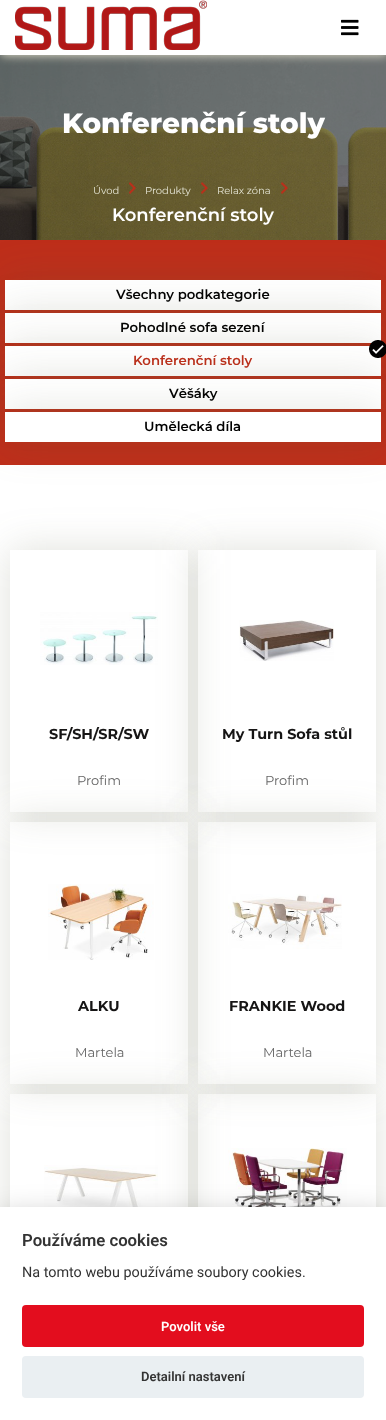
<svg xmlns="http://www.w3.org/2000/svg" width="386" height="1420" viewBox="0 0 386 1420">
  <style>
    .t1 { font: 800 28px Montserrat; fill: #fff; }
    .t2 { font: 10px Montserrat; fill: #e7e7d7; }
    .t3 { font: 600 18px Montserrat; fill: #fff; }
    .t4 { font: 600 13.25px Montserrat; fill: #000; }
    .t5 { font: 600 13.25px Montserrat; fill: #be2e1a; }
    .t6 { font: bold 14.4px Montserrat; fill: #161515; }
    .t7 { font: 13px Montserrat; fill: #666; }
    .t8 { font: 600 16.75px Roboto; fill: #333; }
    .t9 { font: 14.4px Roboto; fill: #333; }
    .t10 { font: 600 13px Roboto; fill: #fff; }
    .t11 { font: 600 13px Roboto; fill: #333; }
  </style>
  <defs>
    <clipPath id="clip1"><path d="M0 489H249V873H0ZM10 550H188V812H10Z" clip-rule="evenodd"/></clipPath>
    <clipPath id="clip2"><path d="M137 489H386V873H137ZM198 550H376V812H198Z" clip-rule="evenodd"/></clipPath>
    <clipPath id="clip3"><path d="M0 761H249V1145H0ZM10 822H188V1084H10Z" clip-rule="evenodd"/></clipPath>
    <clipPath id="clip4"><path d="M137 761H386V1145H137ZM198 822H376V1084H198Z" clip-rule="evenodd"/></clipPath>
    <clipPath id="clip5"><path d="M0 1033H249V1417H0ZM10 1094H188V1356H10Z" clip-rule="evenodd"/></clipPath>
    <clipPath id="clip6"><path d="M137 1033H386V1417H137ZM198 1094H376V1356H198Z" clip-rule="evenodd"/></clipPath>
  </defs>
  <rect width="100%" height="100%" fill="#fff"/>
  <rect x="0" y="240" width="386" height="225" fill="#be2e1a"/>
  <rect x="5" y="280" width="376" height="30" fill="#60644433" filter="blur(20px)"/>
  <image x="0" y="55" width="386" height="185" href="images/3.png"/>
  <rect x="1" y="1" width="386" height="55" fill="#d8d5c2" filter="blur(5px)"/>
  <rect x="0" y="0" width="386" height="55" fill="#fff"/>
  <image x="15" y="0" width="192" height="50" href="images/1.png"/>
  <image x="341" y="19" width="18" height="17" href="images/2.png"/>
  <text x="62" y="133" class="t1">Konferenční stoly</text>
  <text x="93" y="194" class="t2">Úvod</text>
  <image x="129" y="181" width="7" height="13" href="images/4.png"/>
  <text x="145" y="194" class="t2">Produkty</text>
  <image x="201" y="181" width="7" height="13" href="images/5.png"/>
  <text x="217" y="194" class="t2">Relax zóna</text>
  <image x="281" y="181" width="7" height="13" href="images/6.png"/>
  <text x="112" y="221" class="t3">Konferenční stoly</text>
  <rect x="5" y="280" width="376" height="30" fill="#fff"/>
  <text x="116" y="299" class="t4">Všechny podkategorie</text>
  <rect x="5" y="313" width="376" height="30" fill="#60644433" filter="blur(20px)"/>
  <rect x="5" y="313" width="376" height="30" fill="#fff"/>
  <text x="120" y="332" class="t4">Pohodlné sofa sezení</text>
  <rect x="5" y="346" width="376" height="30" fill="#60644433" filter="blur(20px)"/>
  <rect x="5" y="346" width="376" height="30" fill="#fff"/>
  <image x="369" y="340" width="17" height="18" href="images/7.png"/>
  <text x="133" y="365" class="t5">Konferenční stoly</text>
  <rect x="5" y="379" width="376" height="30" fill="#60644433" filter="blur(20px)"/>
  <rect x="5" y="379" width="376" height="30" fill="#fff"/>
  <text x="169" y="398" class="t4">Věšáky</text>
  <rect x="5" y="412" width="376" height="30" fill="#60644433" filter="blur(20px)"/>
  <rect x="5" y="412" width="376" height="30" fill="#fff"/>
  <text x="144" y="431" class="t4">Umělecká díla</text>
  <g clip-path="url(#clip1)">
    <rect x="10" y="550" width="178" height="262" fill="#60644433" filter="blur(20px)"/>
  </g>
  <image x="40" y="612" width="118" height="53" href="images/8.png"/>
  <text x="49" y="739" class="t6">SF/SH/SR/SW</text>
  <text x="77" y="785" class="t7">Profim</text>
  <g clip-path="url(#clip2)">
    <rect x="198" y="550" width="178" height="262" fill="#60644433" filter="blur(20px)"/>
  </g>
  <image x="239" y="620" width="95" height="41" href="images/9.png"/>
  <text x="222" y="739" class="t6">My Turn Sofa stůl</text>
  <text x="265" y="785" class="t7">Profim</text>
  <g clip-path="url(#clip3)">
    <rect x="10" y="822" width="178" height="262" fill="#60644433" filter="blur(20px)"/>
  </g>
  <image x="48" y="884" width="106" height="76" href="images/10.png"/>
  <text x="78" y="1011" class="t6">ALKU</text>
  <text x="75" y="1057" class="t7">Martela</text>
  <g clip-path="url(#clip4)">
    <rect x="198" y="822" width="178" height="262" fill="#60644433" filter="blur(20px)"/>
  </g>
  <image x="228" y="894" width="114" height="55" href="images/11.png"/>
  <text x="229" y="1011" class="t6">FRANKIE Wood</text>
  <text x="263" y="1057" class="t7">Martela</text>
  <g clip-path="url(#clip5)">
    <rect x="10" y="1094" width="178" height="262" fill="#60644433" filter="blur(20px)"/>
  </g>
  <image x="44" y="1165" width="114" height="42" href="images/12.png"/>
  <g clip-path="url(#clip6)">
    <rect x="198" y="1094" width="178" height="262" fill="#60644433" filter="blur(20px)"/>
  </g>
  <image x="228" y="1148" width="119" height="59" href="images/13.png"/>
  <rect x="0" y="1217" width="386" height="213" fill="#02020347" filter="blur(15px)"/>
  <rect x="0" y="1207" width="386" height="213" fill="#fff"/>
  <text x="22" y="1246" class="t8">Používáme cookies</text>
  <text x="22" y="1277" class="t9">Na tomto webu používáme soubory cookies.</text>
  <rect x="22" y="1305" width="342" height="42" rx="4" fill="#e30d1e"/>
  <text x="161" y="1331" class="t10">Povolit vše</text>
  <rect x="22" y="1356" width="342" height="42" rx="4" fill="#eaeff2"/>
  <text x="141" y="1381" class="t11">Detailní nastavení</text>
</svg>
